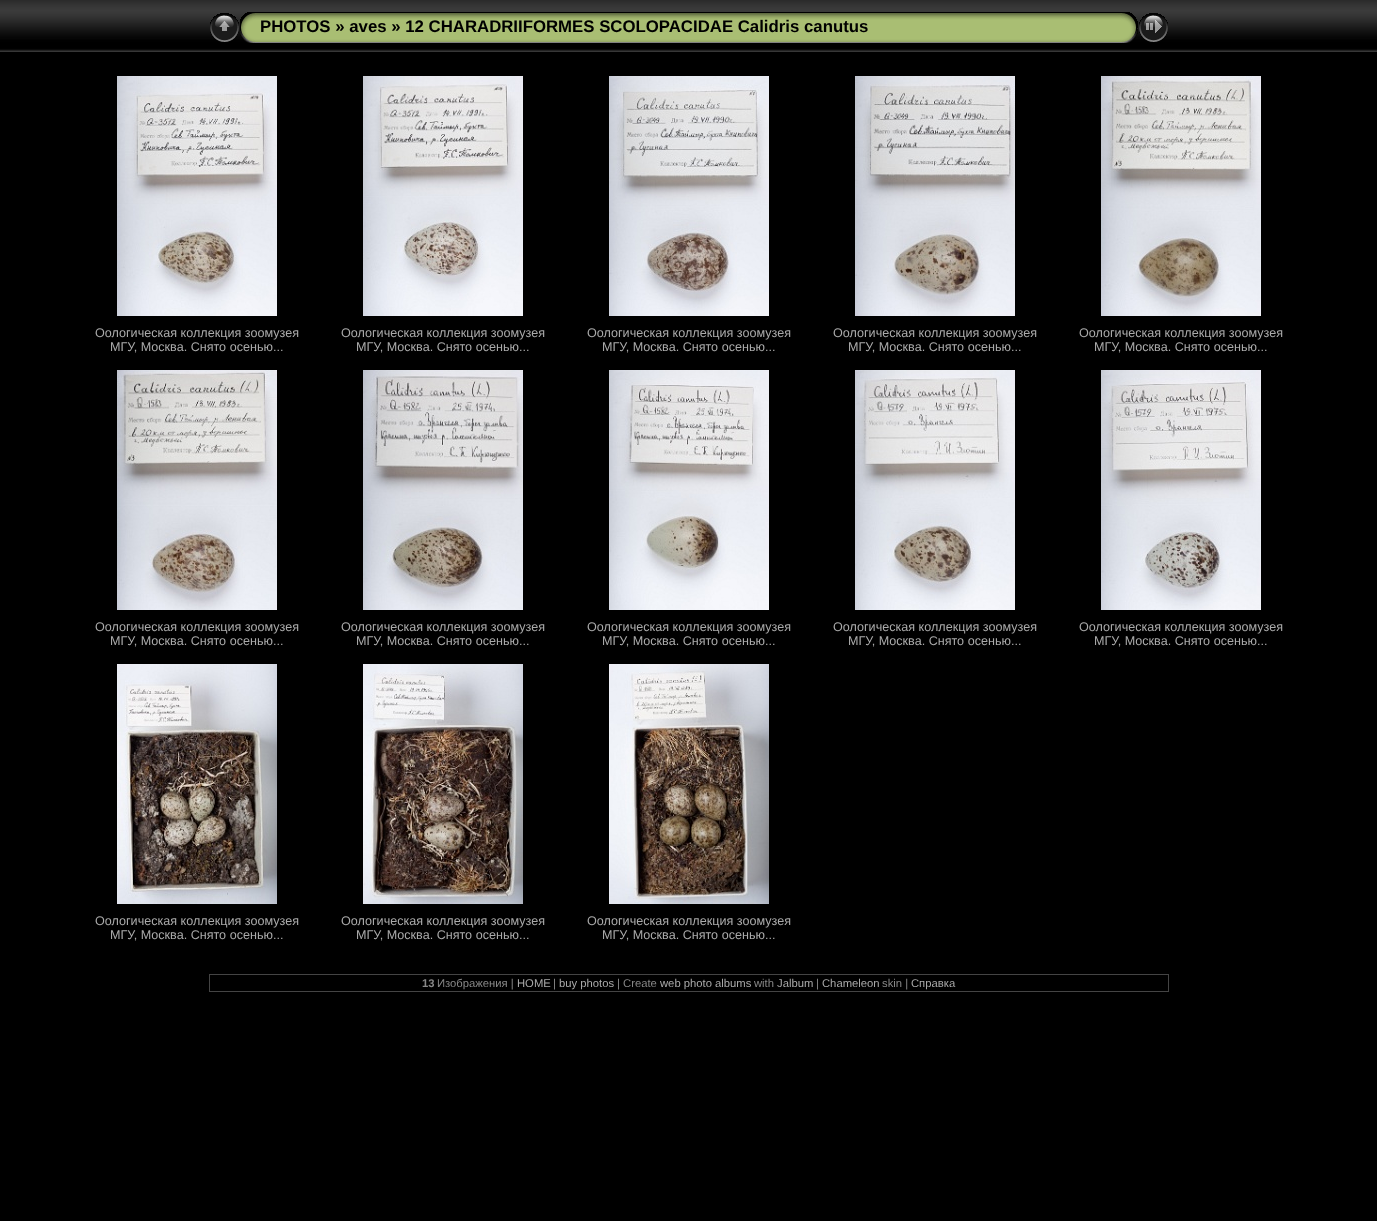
<svg xmlns="http://www.w3.org/2000/svg" width="1377" height="1221" viewBox="0 0 1377 1221">
  <style>
    .t1 { font: bold 16.8px Liberation Sans; fill: #000; }
    .t2 { font: 12.6px Liberation Sans; fill: #aaa; }
    .t3 { font: bold 11.25px Liberation Sans; fill: #888; }
    .t4 { font: 11.25px Liberation Sans; fill: #888; }
    .t5 { font: 11.25px Liberation Sans; fill: #aaa; }
  </style>
  <rect width="100%" height="100%" fill="#000"/>
  <image x="0" y="0" width="1377" height="52" href="images/1.png"/>
  <image x="210" y="13" width="29" height="29" href="images/2.png"/>
  <image x="240" y="12" width="20" height="31" href="images/3.png"/>
  <image x="260" y="12" width="858" height="31" href="images/4.png"/>
  <text x="260" y="32" class="t1">PHOTOS » aves » 12 CHARADRIIFORMES SCOLOPACIDAE Calidris canutus</text>
  <image x="1118" y="12" width="20" height="31" href="images/5.png"/>
  <image x="1139" y="13" width="29" height="29" href="images/6.png"/>
  <image x="117" y="76" width="160" height="240" href="images/7.png"/>
  <text x="95" y="337" class="t2">Оологическая коллекция зоомузея</text>
  <text x="110" y="351" class="t2">МГУ, Москва. Снято осенью...</text>
  <image x="363" y="76" width="160" height="240" href="images/8.png"/>
  <text x="341" y="337" class="t2">Оологическая коллекция зоомузея</text>
  <text x="356" y="351" class="t2">МГУ, Москва. Снято осенью...</text>
  <image x="609" y="76" width="160" height="240" href="images/9.png"/>
  <text x="587" y="337" class="t2">Оологическая коллекция зоомузея</text>
  <text x="602" y="351" class="t2">МГУ, Москва. Снято осенью...</text>
  <image x="855" y="76" width="160" height="240" href="images/10.png"/>
  <text x="833" y="337" class="t2">Оологическая коллекция зоомузея</text>
  <text x="848" y="351" class="t2">МГУ, Москва. Снято осенью...</text>
  <image x="1101" y="76" width="160" height="240" href="images/11.png"/>
  <text x="1079" y="337" class="t2">Оологическая коллекция зоомузея</text>
  <text x="1094" y="351" class="t2">МГУ, Москва. Снято осенью...</text>
  <image x="117" y="370" width="160" height="240" href="images/12.png"/>
  <text x="95" y="631" class="t2">Оологическая коллекция зоомузея</text>
  <text x="110" y="645" class="t2">МГУ, Москва. Снято осенью...</text>
  <image x="363" y="370" width="160" height="240" href="images/13.png"/>
  <text x="341" y="631" class="t2">Оологическая коллекция зоомузея</text>
  <text x="356" y="645" class="t2">МГУ, Москва. Снято осенью...</text>
  <image x="609" y="370" width="160" height="240" href="images/14.png"/>
  <text x="587" y="631" class="t2">Оологическая коллекция зоомузея</text>
  <text x="602" y="645" class="t2">МГУ, Москва. Снято осенью...</text>
  <image x="855" y="370" width="160" height="240" href="images/15.png"/>
  <text x="833" y="631" class="t2">Оологическая коллекция зоомузея</text>
  <text x="848" y="645" class="t2">МГУ, Москва. Снято осенью...</text>
  <image x="1101" y="370" width="160" height="240" href="images/16.png"/>
  <text x="1079" y="631" class="t2">Оологическая коллекция зоомузея</text>
  <text x="1094" y="645" class="t2">МГУ, Москва. Снято осенью...</text>
  <image x="117" y="664" width="160" height="240" href="images/17.png"/>
  <text x="95" y="925" class="t2">Оологическая коллекция зоомузея</text>
  <text x="110" y="939" class="t2">МГУ, Москва. Снято осенью...</text>
  <image x="363" y="664" width="160" height="240" href="images/18.png"/>
  <text x="341" y="925" class="t2">Оологическая коллекция зоомузея</text>
  <text x="356" y="939" class="t2">МГУ, Москва. Снято осенью...</text>
  <image x="609" y="664" width="160" height="240" href="images/19.png"/>
  <text x="587" y="925" class="t2">Оологическая коллекция зоомузея</text>
  <text x="602" y="939" class="t2">МГУ, Москва. Снято осенью...</text>
  <rect x="209" y="974" width="960" height="1" fill="#444"/>
  <rect x="1168" y="974" width="1" height="18" fill="#444"/>
  <rect x="209" y="991" width="960" height="1" fill="#444"/>
  <rect x="209" y="974" width="1" height="18" fill="#444"/>
  <text x="422" y="987" class="t3">13</text>
  <text x="437" y="987" class="t4">Изображения |</text>
  <text x="517" y="987" class="t5">HOME</text>
  <text x="553" y="987" class="t4">|</text>
  <text x="559" y="987" class="t5">buy photos</text>
  <text x="617" y="987" class="t4">| Create</text>
  <text x="660" y="987" class="t5">web photo albums</text>
  <text x="754" y="987" class="t4">with</text>
  <text x="777" y="987" class="t5">Jalbum</text>
  <text x="816" y="987" class="t4">|</text>
  <text x="822" y="987" class="t5">Chameleon</text>
  <text x="882" y="987" class="t4">skin |</text>
  <text x="911" y="987" class="t5">Справка</text>
</svg>
